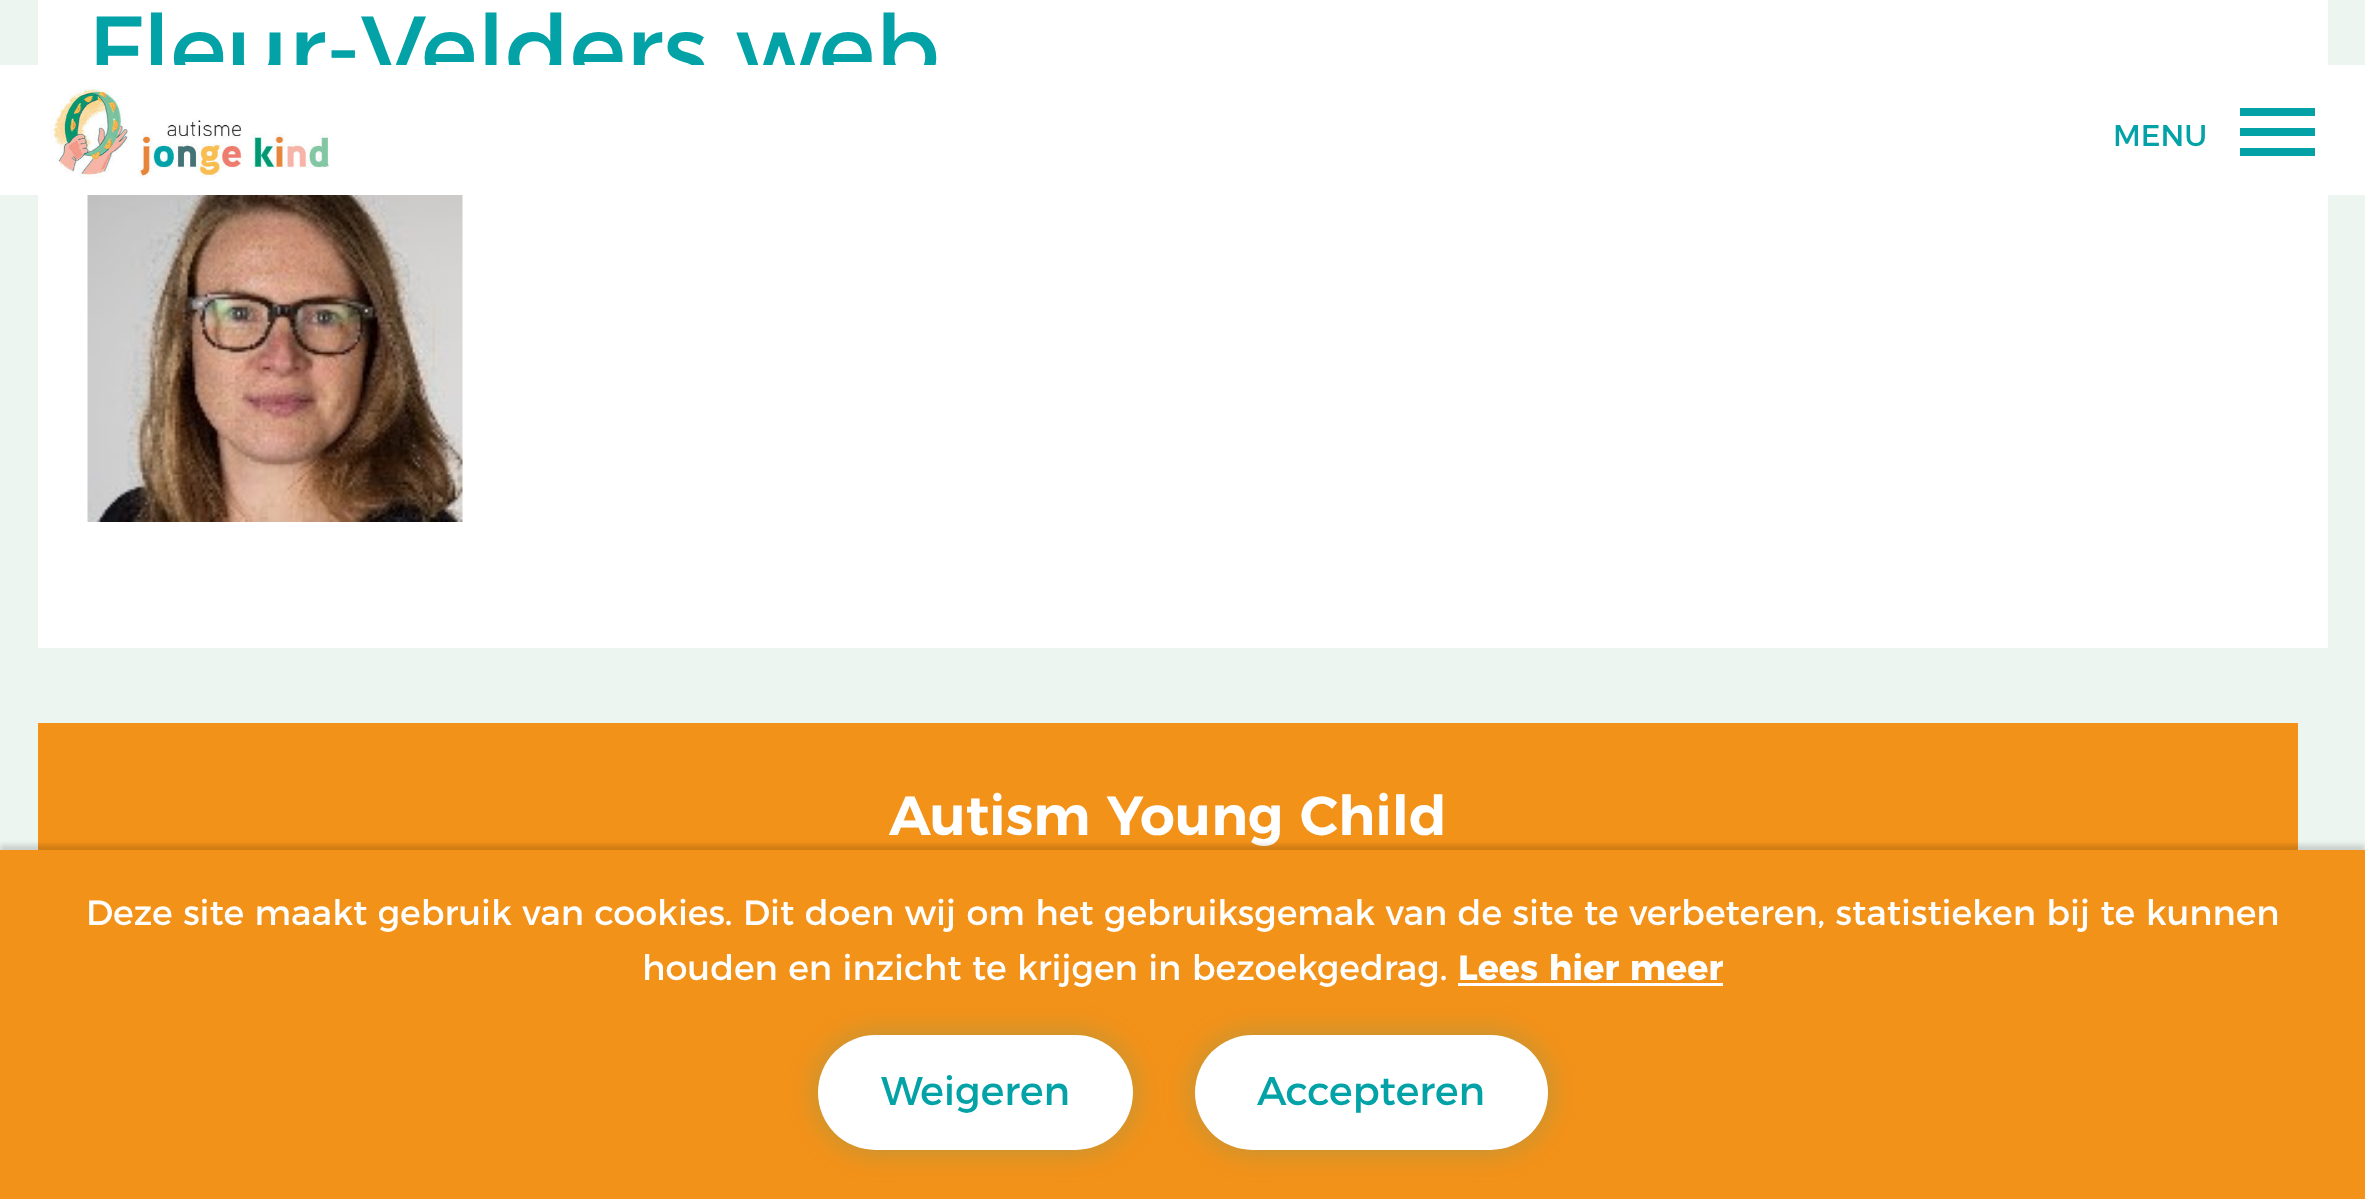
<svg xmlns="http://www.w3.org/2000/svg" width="2365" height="1199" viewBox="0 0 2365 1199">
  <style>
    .t1 { font: 95px Montserrat; fill: #02a2a7; }
    .t2 { font: 600 55px Montserrat; fill: #fff; }
    .t3 { font: 30px Montserrat; fill: #02a2a7; }
    .t4 { font: 35px Montserrat; fill: #fff; }
    .t5 { font: bold 35px Montserrat; fill: #fff; }
    .t6 { font: 40px Montserrat; fill: #02a2a7; }
  </style>
  <rect width="100%" height="100%" fill="#edf5f1"/>
  <rect x="38" y="0" width="2290" height="648" fill="#fff"/>
  <text x="88" y="83" class="t1">Fleur-Velders web</text>
  <image x="87" y="195" width="376" height="327" href="images/1.png"/>
  <rect x="38" y="723" width="2260" height="127" fill="#f39219"/>
  <text x="889" y="835" class="t2">Autism Young Child</text>
  <rect x="0" y="65" width="2365" height="130" fill="#fff"/>
  <image x="50" y="86" width="279" height="92" href="images/2.png"/>
  <text x="2113" y="146" class="t3">MENU</text>
  <rect x="2240" y="128" width="75" height="8" fill="#02a2a7"/>
  <rect x="2240" y="108" width="75" height="8" fill="#02a2a7"/>
  <rect x="2240" y="148" width="75" height="8" fill="#02a2a7"/>
  <rect x="0" y="845" width="2365" height="350" fill="#00000026" filter="blur(2.5px)"/>
  <rect x="0" y="850" width="2365" height="349" fill="#f39219"/>
  <text x="86" y="925" class="t4">Deze site maakt gebruik van cookies. Dit doen wij om het gebruiksgemak van de site te verbeteren, statistieken bij te kunnen</text>
  <text x="642" y="980" class="t4">houden en inzicht te krijgen in bezoekgedrag.</text>
  <text x="1458" y="980" class="t5">Lees hier meer</text>
  <rect x="1458" y="983" width="265" height="3" fill="#fff"/>
  <rect x="818" y="1035" width="315" height="115" rx="57.5" fill="#02a2a740" filter="blur(15px)"/>
  <rect x="818" y="1035" width="315" height="115" rx="57.5" fill="#fff"/>
  <text x="881" y="1105" class="t6">Weigeren</text>
  <rect x="1195" y="1035" width="353" height="115" rx="57.5" fill="#02a2a740" filter="blur(15px)"/>
  <rect x="1195" y="1035" width="353" height="115" rx="57.5" fill="#fff"/>
  <text x="1257" y="1105" class="t6">Accepteren</text>
</svg>
